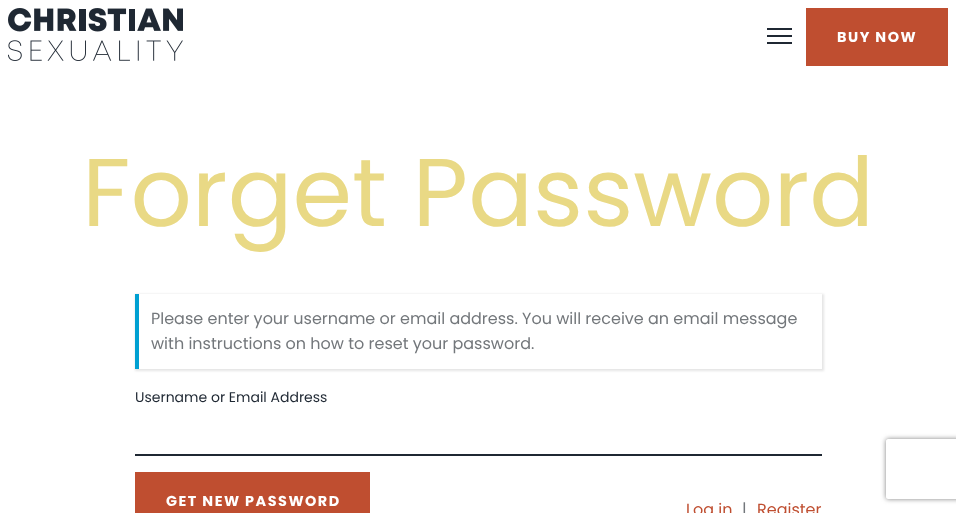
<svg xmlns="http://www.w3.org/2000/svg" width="956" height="513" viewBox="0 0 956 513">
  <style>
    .t1 { font: bold 14.4px Poppins; letter-spacing: 1.5px; fill: #fff; }
    .t2 { font: 96px Poppins; fill: #e9d985; }
    .t3 { font: 16px Poppins; fill: #73777b; }
    .t4 { font: 14px Poppins; fill: #1f2833; }
    .t5 { font: 16px Poppins; fill: #bf4e30; }
  </style>
  <defs>
    <clipPath id="clip1"><path d="M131 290H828V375H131ZM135 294H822V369H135Z" clip-rule="evenodd"/></clipPath>
    <clipPath id="clip2"><path d="M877 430H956V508H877ZM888 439H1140C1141 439 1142 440 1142 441V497C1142 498 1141 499 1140 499H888C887 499 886 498 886 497V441C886 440 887 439 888 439Z" clip-rule="evenodd"/></clipPath>
  </defs>
  <rect width="100%" height="100%" fill="#fff"/>
  <image x="8" y="8" width="175" height="53" href="images/1.png"/>
  <rect x="767" y="42" width="25" height="2" fill="#1f2833"/>
  <rect x="767" y="35" width="25" height="2" fill="#1f2833"/>
  <rect x="767" y="28" width="25" height="2" fill="#1f2833"/>
  <rect x="806" y="8" width="142" height="58" fill="#bf4e30"/>
  <text x="837" y="42" class="t1">BUY NOW</text>
  <text x="82" y="226" class="t2">Forget Password</text>
  <g clip-path="url(#clip1)">
    <rect x="135" y="294" width="689" height="77" fill="#0000001a" filter="blur(1px)"/>
  </g>
  <rect x="135" y="294" width="4" height="75" fill="#00a0d2"/>
  <text x="151" y="324" class="t3">Please enter your username or email address. You will receive an email message</text>
  <text x="151" y="349" class="t3">with instructions on how to reset your password.</text>
  <text x="135" y="402" class="t4">Username or Email Address</text>
  <rect x="135" y="454" width="687" height="2" fill="#1f2833"/>
  <rect x="135" y="472" width="235" height="41" fill="#bf4e30"/>
  <text x="166" y="506" class="t1">GET NEW PASSWORD</text>
  <text x="686" y="515" class="t5">Log in</text>
  <text x="742" y="515" class="t3">|</text>
  <text x="757" y="515" class="t5">Register</text>
  <g clip-path="url(#clip2)">
    <rect x="886" y="439" width="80" height="60" rx="2" fill="#808080" filter="blur(2.5px)"/>
  </g>
</svg>
